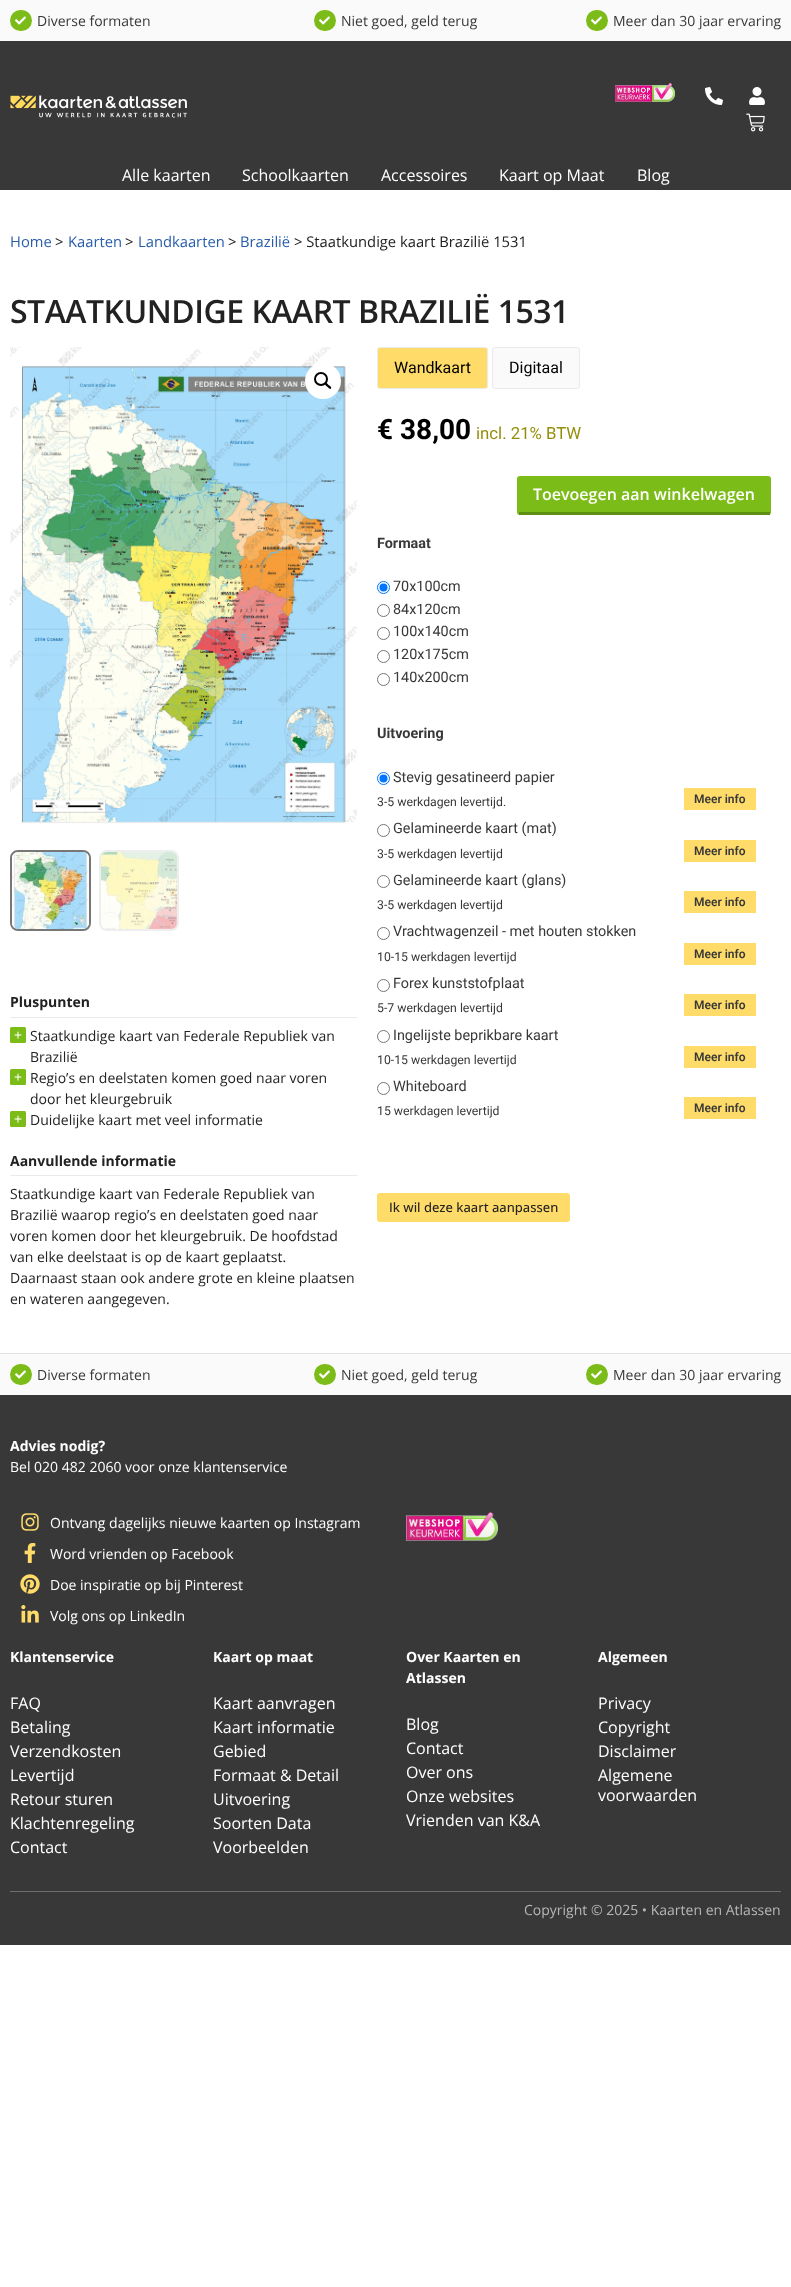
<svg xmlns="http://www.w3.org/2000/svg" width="791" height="2287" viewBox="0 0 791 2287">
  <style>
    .t1 { font: 14px Open Sans; fill: #383838; }
    .t2 { font: 16px Open Sans; fill: #fff; }
    .t3 { font: 14.75px Open Sans; fill: #285dab; }
    .t4 { font: 14.75px Open Sans; fill: #222; }
    .t5 { font: 600 32px Open Sans; letter-spacing: -0.5px; fill: #222; }
    .t6 { font: bold 14px Open Sans; fill: #222; }
    .t7 { font: 14px Open Sans; fill: #fff; }
    .t8 { font: 14px Open Sans; fill: #222; }
    .t9 { font: 16px Roboto; fill: #000; }
    .t10 { font: bold 28px Roboto; fill: #000; }
    .t11 { font: 16.75px Roboto; fill: #958e09; }
    .t12 { font: 600 16px Open Sans; fill: #fff; }
    .t13 { font: bold 14.4px Roboto; fill: #383838; }
    .t14 { font: 14.4px Roboto; fill: #383838; }
    .t15 { font: 12.25px Roboto; fill: #383838; }
    .t16 { font: 600 12px Roboto; fill: #383838; }
    .t17 { font: 500 13px Open Sans; fill: #222; }
    .t18 { font: bold 14px Open Sans; fill: #fff; }
    .t19 { font: 14px Open Sans; fill: #b7b7b7; }
  </style>
  <rect width="100%" height="100%" fill="#fff"/>
  <rect x="0" y="0" width="791" height="41" fill="#fafafa"/>
  <rect x="10" y="10" width="22" height="21" rx="10.5" fill="#7cbc18"/>
  <image x="15" y="16" width="11" height="9" href="images/1.png"/>
  <text x="37" y="26" class="t1">Diverse formaten</text>
  <rect x="314" y="10" width="22" height="21" rx="10.5" fill="#7cbc18"/>
  <image x="319" y="16" width="11" height="9" href="images/1.png"/>
  <text x="341" y="26" class="t1">Niet goed, geld terug</text>
  <rect x="586" y="10" width="22" height="21" rx="10.5" fill="#7cbc18"/>
  <image x="591" y="16" width="11" height="9" href="images/1.png"/>
  <text x="613" y="26" class="t1">Meer dan 30 jaar ervaring</text>
  <rect x="0" y="41" width="791" height="149" fill="#383838"/>
  <image x="10" y="95" width="177" height="23" href="images/2.png"/>
  <image x="615" y="83" width="60" height="19" href="images/3.png"/>
  <image x="705" y="87" width="18" height="18" href="images/4.png"/>
  <image x="749" y="87" width="16" height="18" href="images/5.png"/>
  <image x="746" y="113" width="19" height="19" href="images/6.png"/>
  <text x="122" y="181" class="t2">Alle kaarten</text>
  <text x="242" y="181" class="t2">Schoolkaarten</text>
  <text x="381" y="181" class="t2">Accessoires</text>
  <text x="499" y="181" class="t2">Kaart op Maat</text>
  <text x="637" y="181" class="t2">Blog</text>
  <text x="10" y="247" class="t3">Home</text>
  <text x="55" y="247" class="t4">&gt;</text>
  <text x="68" y="247" class="t3">Kaarten</text>
  <text x="125" y="247" class="t4">&gt;</text>
  <text x="138" y="247" class="t3">Landkaarten</text>
  <text x="228" y="247" class="t4">&gt;</text>
  <text x="240" y="247" class="t3">Brazilië</text>
  <text x="294" y="247" class="t4">&gt; Staatkundige kaart Brazilië 1531</text>
  <text x="10" y="323" class="t5">STAATKUNDIGE KAART BRAZILIË 1531</text>
  <image x="10" y="347" width="347" height="477" href="images/7.png"/>
  <circle cx="323" cy="381" r="18" fill="#fff"/>
  <circle cx="321" cy="379" r="6" fill="none" stroke="#000" stroke-width="2"/>
  <path d="M325 383C326.5 382 328 384.5 328.5 385C329.5 385.5 332 387.5 331 388.5C329.5 390 328 387 327 386.5C326.5 386 324 384 325 383Z" fill="#000"/>
  <rect x="11" y="851" width="79" height="79" rx="7" fill="none" stroke="#777" stroke-width="2"/>
  <image x="12" y="852" width="77" height="77" href="images/8.png"/>
  <rect x="100" y="851" width="78" height="79" rx="7" fill="none" stroke="#eee" stroke-width="2"/>
  <image x="101" y="852" width="76" height="77" href="images/9.png"/>
  <text x="10" y="1007" class="t6">Pluspunten</text>
  <rect x="10" y="1017" width="347" height="1" fill="#eaeaea"/>
  <rect x="10" y="1027" width="16" height="16" rx="1.5" fill="#7cbc18"/>
  <text x="14" y="1040" class="t7">+</text>
  <text x="30" y="1041" class="t8">Staatkundige kaart van Federale Republiek van</text>
  <text x="30" y="1062" class="t8">Brazilië</text>
  <rect x="10" y="1069" width="16" height="16" rx="1.5" fill="#7cbc18"/>
  <text x="14" y="1082" class="t7">+</text>
  <text x="30" y="1083" class="t8">Regio’s en deelstaten komen goed naar voren</text>
  <text x="30" y="1104" class="t8">door het kleurgebruik</text>
  <rect x="10" y="1111" width="16" height="16" rx="1.5" fill="#7cbc18"/>
  <text x="14" y="1124" class="t7">+</text>
  <text x="30" y="1125" class="t8">Duidelijke kaart met veel informatie</text>
  <text x="10" y="1166" class="t6">Aanvullende informatie</text>
  <rect x="10" y="1175" width="347" height="1" fill="#eaeaea"/>
  <text x="10" y="1199" class="t8">Staatkundige kaart van Federale Republiek van</text>
  <text x="10" y="1220" class="t8">Brazilië waarop regio’s en deelstaten goed naar</text>
  <text x="10" y="1241" class="t8">voren komen door het kleurgebruik. De hoofdstad</text>
  <text x="10" y="1262" class="t8">van elke deelstaat is op de kaart geplaatst.</text>
  <text x="10" y="1283" class="t8">Daarnaast staan ook andere grote en kleine plaatsen</text>
  <text x="10" y="1304" class="t8">en wateren aangegeven.</text>
  <rect x="377.5" y="347.5" width="110" height="41" rx="2.5" fill="#ffdc69" stroke="#eaeaea"/>
  <text x="394" y="373" class="t9">Wandkaart</text>
  <rect x="492.5" y="347.5" width="87" height="41" rx="2.5" fill="#fafafa" stroke="#eaeaea"/>
  <text x="509" y="373" class="t9">Digitaal</text>
  <text x="377" y="439" class="t10">€ 38,00</text>
  <text x="476" y="439" class="t11">incl. 21% BTW</text>
  <rect x="517" y="476" width="254" height="39" rx="3" fill="#7cbc18"/>
  <rect x="519" y="512" width="251" height="3" fill="#5e8f12"/>
  <text x="533" y="500" class="t12">Toevoegen aan winkelwagen</text>
  <text x="377" y="548" class="t13">Formaat</text>
  <circle cx="383.5" cy="587.5" r="6" fill="none" stroke="#0075ff"/>
  <circle cx="383.5" cy="587.5" r="4" fill="#0075ff"/>
  <text x="393" y="591" class="t14">70x100cm</text>
  <circle cx="383.5" cy="610.5" r="6" fill="none" stroke="#767676"/>
  <text x="393" y="614" class="t14">84x120cm</text>
  <circle cx="383.5" cy="633.5" r="6" fill="none" stroke="#767676"/>
  <text x="393" y="636" class="t14">100x140cm</text>
  <circle cx="383.5" cy="656.5" r="6" fill="none" stroke="#767676"/>
  <text x="393" y="659" class="t14">120x175cm</text>
  <circle cx="383.5" cy="679.5" r="6" fill="none" stroke="#767676"/>
  <text x="393" y="682" class="t14">140x200cm</text>
  <text x="377" y="738" class="t13">Uitvoering</text>
  <circle cx="383.5" cy="778.5" r="6" fill="none" stroke="#0075ff"/>
  <circle cx="383.5" cy="778.5" r="4" fill="#0075ff"/>
  <text x="393" y="782" class="t14">Stevig gesatineerd papier</text>
  <text x="377" y="806" class="t15">3-5 werkdagen levertijd.</text>
  <rect x="684" y="788" width="72" height="22" fill="#ffdc69"/>
  <text x="694" y="803" class="t16">Meer info</text>
  <circle cx="383.5" cy="830.5" r="6" fill="none" stroke="#767676"/>
  <text x="393" y="833" class="t14">Gelamineerde kaart (mat)</text>
  <text x="377" y="858" class="t15">3-5 werkdagen levertijd</text>
  <rect x="684" y="840" width="72" height="22" fill="#ffdc69"/>
  <text x="694" y="855" class="t16">Meer info</text>
  <circle cx="383.5" cy="881.5" r="6" fill="none" stroke="#767676"/>
  <text x="393" y="885" class="t14">Gelamineerde kaart (glans)</text>
  <text x="377" y="909" class="t15">3-5 werkdagen levertijd</text>
  <rect x="684" y="891" width="72" height="22" fill="#ffdc69"/>
  <text x="694" y="906" class="t16">Meer info</text>
  <circle cx="383.5" cy="933.5" r="6" fill="none" stroke="#767676"/>
  <text x="393" y="936" class="t14">Vrachtwagenzeil - met houten stokken</text>
  <text x="377" y="961" class="t15">10-15 werkdagen levertijd</text>
  <rect x="684" y="943" width="72" height="22" fill="#ffdc69"/>
  <text x="694" y="958" class="t16">Meer info</text>
  <circle cx="383.5" cy="985.5" r="6" fill="none" stroke="#767676"/>
  <text x="393" y="988" class="t14">Forex kunststofplaat</text>
  <text x="377" y="1012" class="t15">5-7 werkdagen levertijd</text>
  <rect x="684" y="994" width="72" height="22" fill="#ffdc69"/>
  <text x="694" y="1009" class="t16">Meer info</text>
  <circle cx="383.5" cy="1036.5" r="6" fill="none" stroke="#767676"/>
  <text x="393" y="1040" class="t14">Ingelijste beprikbare kaart</text>
  <text x="377" y="1064" class="t15">10-15 werkdagen levertijd</text>
  <rect x="684" y="1046" width="72" height="22" fill="#ffdc69"/>
  <text x="694" y="1061" class="t16">Meer info</text>
  <circle cx="383.5" cy="1088.5" r="6" fill="none" stroke="#767676"/>
  <text x="393" y="1091" class="t14">Whiteboard</text>
  <text x="377" y="1115" class="t15">15 werkdagen levertijd</text>
  <rect x="684" y="1097" width="72" height="22" fill="#ffdc69"/>
  <text x="694" y="1112" class="t16">Meer info</text>
  <rect x="377" y="1193" width="193" height="29" rx="3" fill="#ffdc69"/>
  <text x="389" y="1212" class="t17">Ik wil deze kaart aanpassen</text>
  <rect x="0" y="1354" width="791" height="41" fill="#fafafa"/>
  <rect x="0" y="1353" width="791" height="1" fill="#e2e2e2"/>
  <rect x="10" y="1364" width="22" height="21" rx="10.5" fill="#7cbc18"/>
  <image x="15" y="1370" width="11" height="9" href="images/1.png"/>
  <text x="37" y="1380" class="t1">Diverse formaten</text>
  <rect x="314" y="1364" width="22" height="21" rx="10.5" fill="#7cbc18"/>
  <image x="319" y="1370" width="11" height="9" href="images/1.png"/>
  <text x="341" y="1380" class="t1">Niet goed, geld terug</text>
  <rect x="586" y="1364" width="22" height="21" rx="10.5" fill="#7cbc18"/>
  <image x="591" y="1370" width="11" height="9" href="images/1.png"/>
  <text x="613" y="1380" class="t1">Meer dan 30 jaar ervaring</text>
  <rect x="0" y="1395" width="791" height="550" fill="#383838"/>
  <text x="10" y="1451" class="t18">Advies nodig?</text>
  <text x="10" y="1472" class="t7">Bel 020 482 2060 voor onze klantenservice</text>
  <image x="21" y="1513" width="18" height="18" href="images/10.png"/>
  <text x="50" y="1528" class="t7">Ontvang dagelijks nieuwe kaarten op Instagram</text>
  <image x="24" y="1543" width="12" height="20" href="images/11.png"/>
  <text x="50" y="1559" class="t7">Word vrienden op Facebook</text>
  <image x="20" y="1574" width="20" height="20" href="images/12.png"/>
  <text x="50" y="1590" class="t7">Doe inspiratie op bij Pinterest</text>
  <image x="21" y="1605" width="18" height="18" href="images/13.png"/>
  <text x="50" y="1621" class="t7">Volg ons op LinkedIn</text>
  <image x="406" y="1512" width="92" height="29" href="images/14.png"/>
  <text x="10" y="1662" class="t18">Klantenservice</text>
  <text x="10" y="1709" class="t2">FAQ</text>
  <text x="10" y="1733" class="t2">Betaling</text>
  <text x="10" y="1757" class="t2">Verzendkosten</text>
  <text x="10" y="1781" class="t2">Levertijd</text>
  <text x="10" y="1805" class="t2">Retour sturen</text>
  <text x="10" y="1829" class="t2">Klachtenregeling</text>
  <text x="10" y="1853" class="t2">Contact</text>
  <text x="213" y="1662" class="t18">Kaart op maat</text>
  <text x="213" y="1709" class="t2">Kaart aanvragen</text>
  <text x="213" y="1733" class="t2">Kaart informatie</text>
  <text x="213" y="1757" class="t2">Gebied</text>
  <text x="213" y="1781" class="t2">Formaat &amp; Detail</text>
  <text x="213" y="1805" class="t2">Uitvoering</text>
  <text x="213" y="1829" class="t2">Soorten Data</text>
  <text x="213" y="1853" class="t2">Voorbeelden</text>
  <text x="406" y="1662" class="t18">Over Kaarten en</text>
  <text x="406" y="1683" class="t18">Atlassen</text>
  <text x="406" y="1730" class="t2">Blog</text>
  <text x="406" y="1754" class="t2">Contact</text>
  <text x="406" y="1778" class="t2">Over ons</text>
  <text x="406" y="1802" class="t2">Onze websites</text>
  <text x="406" y="1826" class="t2">Vrienden van K&amp;A</text>
  <text x="598" y="1662" class="t18">Algemeen</text>
  <text x="598" y="1709" class="t2">Privacy</text>
  <text x="598" y="1733" class="t2">Copyright</text>
  <text x="598" y="1757" class="t2">Disclaimer</text>
  <text x="598" y="1781" class="t2">Algemene</text>
  <text x="598" y="1801" class="t2">voorwaarden</text>
  <rect x="10" y="1891" width="771" height="1" fill="#6e6e6e"/>
  <text x="524" y="1915" class="t19">Copyright © 2025 • Kaarten en Atlassen</text>
</svg>
